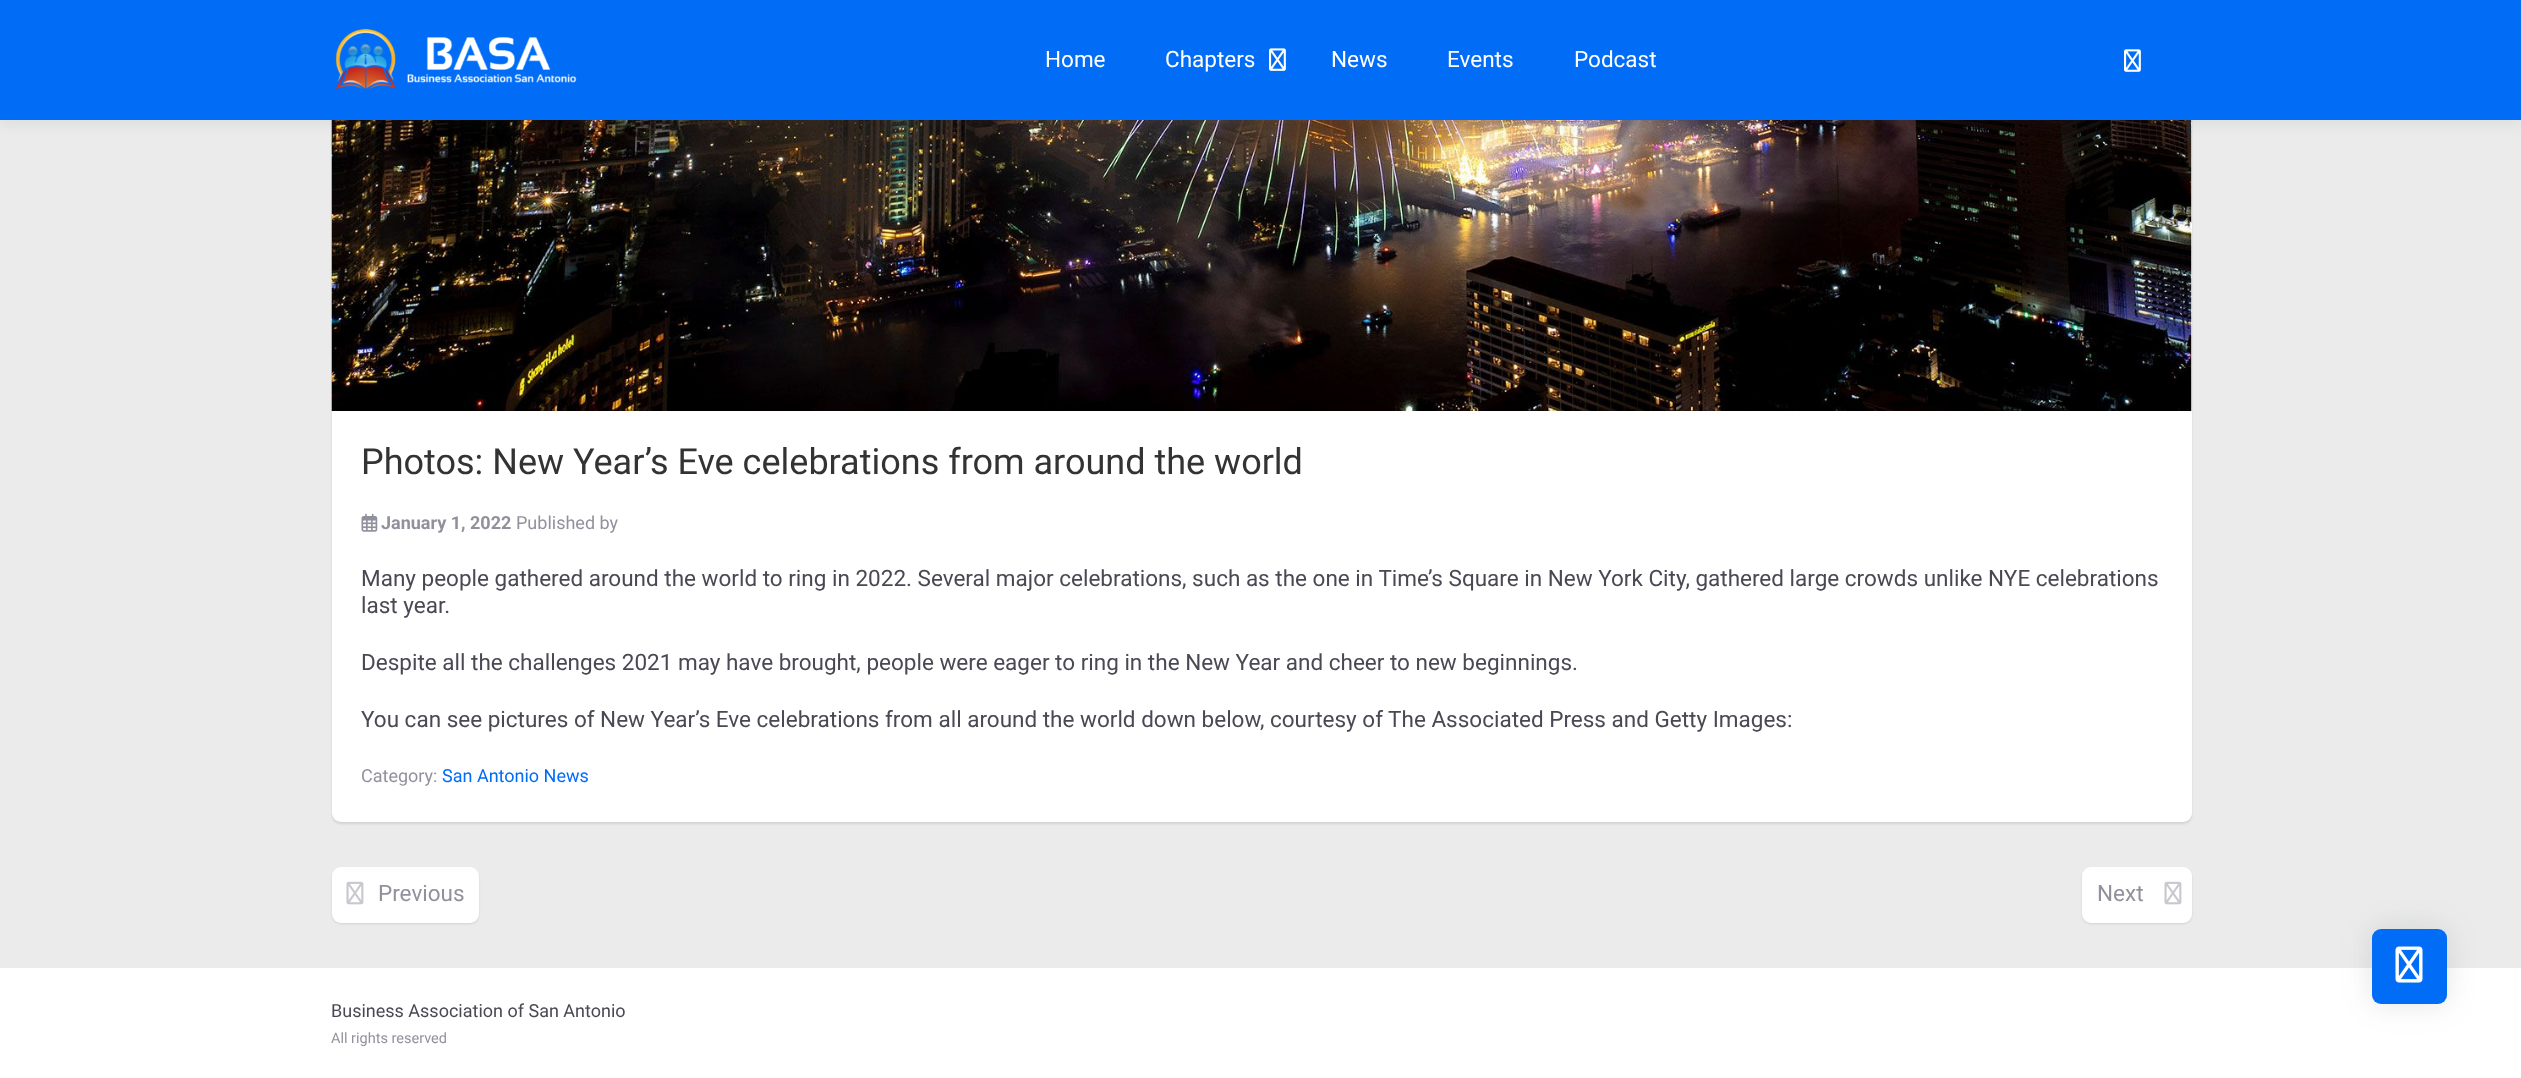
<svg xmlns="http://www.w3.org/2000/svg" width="2521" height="1078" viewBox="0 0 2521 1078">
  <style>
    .t1 { font: 22.5px Roboto; fill: #fff; }
    .t2 { font: 36px Roboto; fill: #333; }
    .t3 { font: bold 18px Roboto; fill: #91919d; }
    .t4 { font: 18px Roboto; fill: #91919d; }
    .t5 { font: 22.5px Roboto; fill: #494954; }
    .t6 { font: 18px Roboto; fill: #016df7; }
    .t7 { font: 22.5px Roboto; fill: #91919d; }
    .t8 { font: 18px Roboto; fill: #494954; }
    .t9 { font: 14.5px Roboto; fill: #91919d; }
  </style>
  <rect width="100%" height="100%" fill="#ebebeb"/>
  <rect x="332" y="-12" width="1860" height="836" rx="9" fill="#464d5726" filter="blur(1px)"/>
  <rect x="332" y="-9" width="1860" height="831" rx="9" fill="#fff"/>
  <image x="331" y="120" width="1861" height="291" href="images/4.png"/>
  <rect x="0" y="3" width="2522" height="120" fill="#464d571a" filter="blur(7.5px)"/>
  <rect x="0" y="0" width="2521" height="120" fill="#016df7"/>
  <image x="335" y="29" width="242" height="61" href="images/1.png"/>
  <text x="1045" y="67" class="t1">Home</text>
  <text x="1165" y="67" class="t1">Chapters</text>
  <image x="1269" y="48" width="17" height="23" href="images/2.png"/>
  <text x="1331" y="67" class="t1">News</text>
  <text x="1447" y="67" class="t1">Events</text>
  <text x="1574" y="67" class="t1">Podcast</text>
  <image x="2124" y="49" width="17" height="23" href="images/3.png"/>
  <text x="361" y="474" class="t2">Photos: New Year’s Eve celebrations from around the world</text>
  <image x="361" y="513" width="17" height="19" href="images/5.png"/>
  <text x="381" y="529" class="t3">January 1, 2022</text>
  <text x="516" y="529" class="t4">Published by</text>
  <text x="361" y="586" class="t5">Many people gathered around the world to ring in 2022. Several major celebrations, such as the one in Time’s Square in New York City, gathered large crowds unlike NYE celebrations</text>
  <text x="361" y="613" class="t5">last year.</text>
  <text x="361" y="670" class="t5">Despite all the challenges 2021 may have brought, people were eager to ring in the New Year and cheer to new beginnings.</text>
  <text x="361" y="727" class="t5">You can see pictures of New Year’s Eve celebrations from all around the world down below, courtesy of The Associated Press and Getty Images:</text>
  <text x="361" y="782" class="t4">Category:</text>
  <text x="442" y="782" class="t6">San Antonio News</text>
  <rect x="332" y="869" width="147" height="55" rx="9" fill="#464d5726" filter="blur(1px)"/>
  <rect x="332" y="867" width="147" height="56" rx="9" fill="#fff"/>
  <image x="346" y="881" width="18" height="24" href="images/6.png"/>
  <text x="378" y="901" class="t7">Previous</text>
  <rect x="2082" y="869" width="110" height="55" rx="9" fill="#464d5726" filter="blur(1px)"/>
  <rect x="2082" y="867" width="110" height="56" rx="9" fill="#fff"/>
  <text x="2097" y="901" class="t7">Next</text>
  <image x="2164" y="881" width="18" height="24" href="images/6.png"/>
  <rect x="0" y="968" width="2521" height="110" fill="#fff"/>
  <text x="331" y="1017" class="t8">Business Association of San Antonio</text>
  <text x="331" y="1043" class="t9">All rights reserved</text>
  <rect x="2372" y="929" width="75" height="75" rx="9" fill="#464d5726" filter="blur(15px)"/>
  <rect x="2372" y="929" width="75" height="75" rx="9" fill="#016df7"/>
  <image x="2395" y="946" width="28" height="37" href="images/7.png"/>
</svg>
